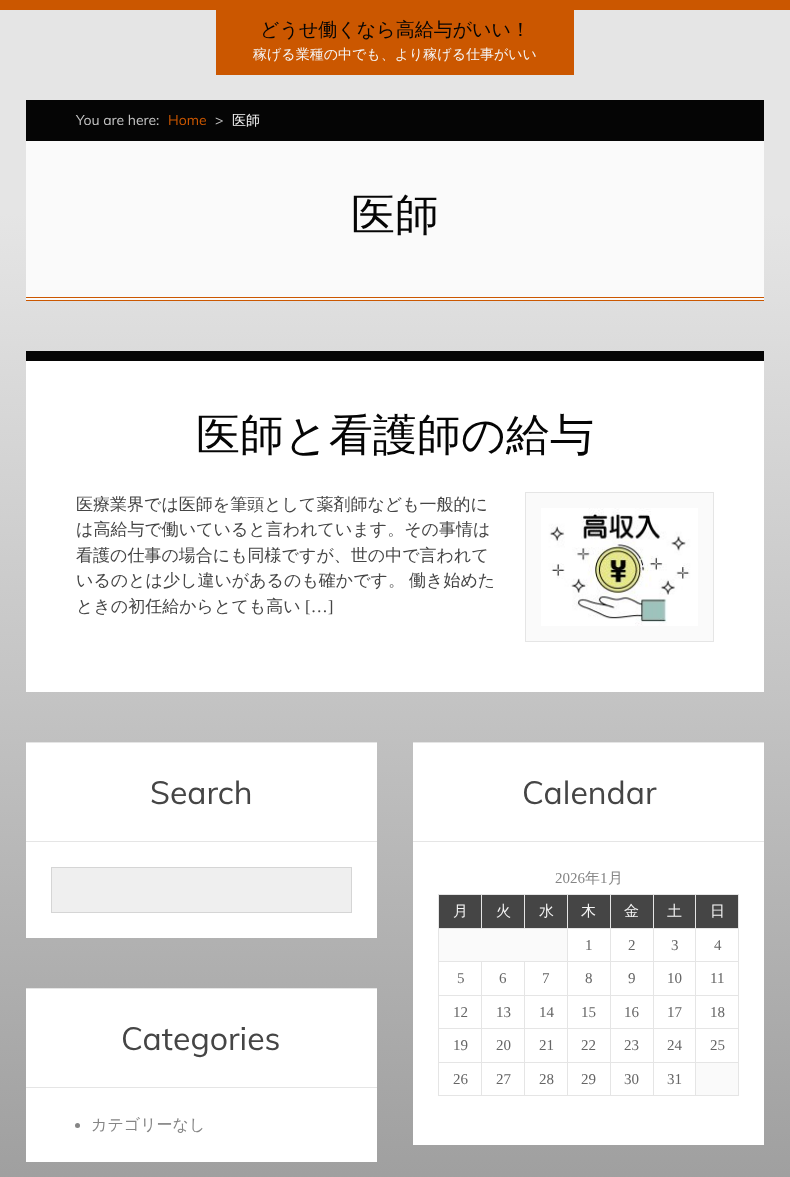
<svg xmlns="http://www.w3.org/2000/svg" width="790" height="1177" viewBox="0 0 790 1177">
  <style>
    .t1 { font: 500 19px WenQuanYi Zen Hei; fill: #050505; }
    .t2 { font: 500 14px WenQuanYi Zen Hei; fill: #f5f5f5; }
    .t3 { font: 14px Muli; fill: #c5c5c5; }
    .t4 { font: 14px Muli; fill: #cb5700; }
    .t5 { font: 500 44px WenQuanYi Zen Hei; fill: #050505; }
    .t6 { font: 500 17px WenQuanYi Zen Hei; fill: #454545; }
    .t7 { font: 17px Liberation Serif; fill: #454545; }
    .t8 { font: 32px Muli; fill: #454545; }
    .t9 { font: 15px Liberation Serif; fill: #858585; }
    .t10 { font: 500 15px WenQuanYi Zen Hei; fill: #858585; }
    .t11 { font: 500 15px WenQuanYi Zen Hei; fill: #f5f5f5; }
    .t12 { font: 15px Liberation Serif; fill: #656565; }
    .t13 { font: 500 16px WenQuanYi Zen Hei; fill: #858585; }
  </style>
  <defs>
    <linearGradient id="g1" gradientUnits="userSpaceOnUse" x1="395" y1="0" x2="395" y2="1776"><stop offset="0.12" stop-color="#e5e5e5"/><stop offset="0.25" stop-color="#d5d5d5"/><stop offset="0.38" stop-color="#c5c5c5"/><stop offset="0.5" stop-color="#b5b5b5"/><stop offset="0.62" stop-color="#a5a5a5"/><stop offset="0.75" stop-color="#959595"/><stop offset="0.88" stop-color="#858585"/><stop offset="1" stop-color="#757575"/></linearGradient>
  </defs>
  <rect width="100%" height="100%" fill="#fff"/>
  <rect x="0" y="10" width="790" height="1167" fill="url(#g1)"/>
  <rect x="0" y="0" width="790" height="10" fill="#cb5700"/>
  <rect x="216" y="10" width="358" height="65" fill="#cb5700"/>
  <text x="260" y="36" class="t1">どうせ働くなら高給与がいい！</text>
  <text x="253" y="59" class="t2">稼げる業種の中でも、より稼げる仕事がいい</text>
  <rect x="26" y="100" width="738" height="41" fill="#050505"/>
  <text x="76" y="125" class="t3">You are here:</text>
  <text x="168" y="125" class="t4">Home</text>
  <text x="215" y="125" class="t3">&gt;</text>
  <text x="232" y="125" class="t2">医師</text>
  <rect x="26" y="141" width="738" height="159" fill="#fafafa"/>
  <rect x="26" y="297" width="738" height="1" fill="#cb5700"/>
  <rect x="26" y="300" width="738" height="1" fill="#cb5700"/>
  <text x="351" y="230" class="t5">医師</text>
  <rect x="26" y="361" width="738" height="331" fill="#fff"/>
  <rect x="26" y="351" width="738" height="10" fill="#050505"/>
  <text x="196" y="450" class="t5">医師と看護師の給与</text>
  <text x="76" y="510" class="t6">医療業界では医師を筆頭として薬剤師なども一般的に</text>
  <text x="76" y="535" class="t6">は高給与で働いていると言われています。その事情は</text>
  <text x="76" y="561" class="t6">看護の仕事の場合にも同様ですが、世の中で言われて</text>
  <text x="76" y="586" word-spacing="-1" class="t6">いるのとは少し違いがあるのも確かです。 働き始めた</text>
  <text x="76" y="612" class="t6">ときの初任給からとても高い</text>
  <text x="305" y="612" class="t7">[…]</text>
  <rect x="525.5" y="492.5" width="188" height="149" fill="#fafafa" stroke="#e5e5e5"/>
  <image x="541" y="508" width="157" height="118" href="images/1.png"/>
  <rect x="26" y="743" width="351" height="195" fill="#fff"/>
  <rect x="26" y="742" width="351" height="1" fill="#e5e5e5"/>
  <rect x="26" y="841" width="351" height="1" fill="#e5e5e5"/>
  <text x="150" y="804" class="t8">Search</text>
  <rect x="51.5" y="867.5" width="300" height="45" fill="#efefef" stroke="#d5d5d5"/>
  <rect x="413" y="743" width="351" height="402" fill="#fff"/>
  <rect x="413" y="742" width="351" height="1" fill="#e5e5e5"/>
  <rect x="413" y="841" width="351" height="1" fill="#e5e5e5"/>
  <text x="522" y="804" class="t8">Calendar</text>
  <text x="555" y="883" class="t9">2026</text>
  <text x="585" y="883" class="t10">年</text>
  <text x="600" y="883" class="t9">1</text>
  <text x="608" y="883" class="t10">月</text>
  <rect x="438" y="894" width="301" height="1" fill="#e5e5e5"/>
  <rect x="438" y="928" width="1" height="168" fill="#e5e5e5"/>
  <rect x="438" y="894" width="1" height="35" fill="#e5e5e5"/>
  <rect x="439" y="895" width="42" height="33" fill="#454545"/>
  <rect x="738" y="894" width="1" height="202" fill="#e5e5e5"/>
  <rect x="695" y="1095" width="44" height="1" fill="#e5e5e5"/>
  <rect x="695" y="1062" width="1" height="34" fill="#e5e5e5"/>
  <rect x="695" y="1062" width="44" height="1" fill="#e5e5e5"/>
  <rect x="695" y="1028" width="1" height="35" fill="#e5e5e5"/>
  <rect x="695" y="1028" width="44" height="1" fill="#e5e5e5"/>
  <rect x="695" y="995" width="1" height="34" fill="#e5e5e5"/>
  <rect x="695" y="995" width="44" height="1" fill="#e5e5e5"/>
  <rect x="695" y="961" width="1" height="35" fill="#e5e5e5"/>
  <rect x="695" y="961" width="44" height="1" fill="#e5e5e5"/>
  <rect x="695" y="928" width="1" height="34" fill="#e5e5e5"/>
  <rect x="695" y="928" width="44" height="1" fill="#e5e5e5"/>
  <rect x="695" y="894" width="1" height="35" fill="#e5e5e5"/>
  <rect x="653" y="1095" width="43" height="1" fill="#e5e5e5"/>
  <rect x="653" y="1062" width="1" height="34" fill="#e5e5e5"/>
  <rect x="653" y="1062" width="43" height="1" fill="#e5e5e5"/>
  <rect x="653" y="1028" width="1" height="35" fill="#e5e5e5"/>
  <rect x="653" y="1028" width="43" height="1" fill="#e5e5e5"/>
  <rect x="653" y="995" width="1" height="34" fill="#e5e5e5"/>
  <rect x="653" y="995" width="43" height="1" fill="#e5e5e5"/>
  <rect x="653" y="961" width="1" height="35" fill="#e5e5e5"/>
  <rect x="653" y="961" width="43" height="1" fill="#e5e5e5"/>
  <rect x="653" y="928" width="1" height="34" fill="#e5e5e5"/>
  <rect x="653" y="928" width="43" height="1" fill="#e5e5e5"/>
  <rect x="653" y="894" width="1" height="35" fill="#e5e5e5"/>
  <rect x="610" y="1095" width="44" height="1" fill="#e5e5e5"/>
  <rect x="610" y="1062" width="1" height="34" fill="#e5e5e5"/>
  <rect x="610" y="1062" width="44" height="1" fill="#e5e5e5"/>
  <rect x="610" y="1028" width="1" height="35" fill="#e5e5e5"/>
  <rect x="610" y="1028" width="44" height="1" fill="#e5e5e5"/>
  <rect x="610" y="995" width="1" height="34" fill="#e5e5e5"/>
  <rect x="610" y="995" width="44" height="1" fill="#e5e5e5"/>
  <rect x="610" y="961" width="1" height="35" fill="#e5e5e5"/>
  <rect x="610" y="961" width="44" height="1" fill="#e5e5e5"/>
  <rect x="610" y="928" width="1" height="34" fill="#e5e5e5"/>
  <rect x="610" y="928" width="44" height="1" fill="#e5e5e5"/>
  <rect x="610" y="894" width="1" height="35" fill="#e5e5e5"/>
  <rect x="567" y="1095" width="44" height="1" fill="#e5e5e5"/>
  <rect x="567" y="1062" width="1" height="34" fill="#e5e5e5"/>
  <rect x="567" y="1062" width="44" height="1" fill="#e5e5e5"/>
  <rect x="567" y="1028" width="1" height="35" fill="#e5e5e5"/>
  <rect x="567" y="1028" width="44" height="1" fill="#e5e5e5"/>
  <rect x="567" y="995" width="1" height="34" fill="#e5e5e5"/>
  <rect x="567" y="995" width="44" height="1" fill="#e5e5e5"/>
  <rect x="567" y="961" width="1" height="35" fill="#e5e5e5"/>
  <rect x="567" y="961" width="44" height="1" fill="#e5e5e5"/>
  <rect x="567" y="928" width="1" height="34" fill="#e5e5e5"/>
  <rect x="567" y="928" width="44" height="1" fill="#e5e5e5"/>
  <rect x="567" y="894" width="1" height="35" fill="#e5e5e5"/>
  <rect x="524" y="928" width="44" height="1" fill="#e5e5e5"/>
  <rect x="524" y="894" width="1" height="35" fill="#e5e5e5"/>
  <rect x="481" y="928" width="44" height="1" fill="#e5e5e5"/>
  <rect x="481" y="894" width="1" height="35" fill="#e5e5e5"/>
  <rect x="438" y="928" width="44" height="1" fill="#e5e5e5"/>
  <text x="453" y="916" class="t11">月</text>
  <rect x="482" y="895" width="42" height="33" fill="#454545"/>
  <text x="496" y="916" class="t11">火</text>
  <rect x="525" y="895" width="42" height="33" fill="#454545"/>
  <text x="539" y="916" class="t11">水</text>
  <rect x="568" y="895" width="42" height="33" fill="#454545"/>
  <text x="581" y="916" class="t11">木</text>
  <rect x="611" y="895" width="42" height="33" fill="#454545"/>
  <text x="624" y="916" class="t11">金</text>
  <rect x="654" y="895" width="41" height="33" fill="#454545"/>
  <text x="667" y="916" class="t11">土</text>
  <rect x="696" y="895" width="42" height="33" fill="#454545"/>
  <text x="710" y="916" class="t11">日</text>
  <rect x="439" y="929" width="128" height="32" fill="#fafafa"/>
  <rect x="524" y="1095" width="44" height="1" fill="#e5e5e5"/>
  <rect x="524" y="1062" width="1" height="34" fill="#e5e5e5"/>
  <rect x="524" y="1062" width="44" height="1" fill="#e5e5e5"/>
  <rect x="524" y="1028" width="1" height="35" fill="#e5e5e5"/>
  <rect x="524" y="1028" width="44" height="1" fill="#e5e5e5"/>
  <rect x="524" y="995" width="1" height="34" fill="#e5e5e5"/>
  <rect x="524" y="995" width="44" height="1" fill="#e5e5e5"/>
  <rect x="524" y="961" width="1" height="35" fill="#e5e5e5"/>
  <rect x="481" y="1095" width="44" height="1" fill="#e5e5e5"/>
  <rect x="481" y="1062" width="1" height="34" fill="#e5e5e5"/>
  <rect x="481" y="1062" width="44" height="1" fill="#e5e5e5"/>
  <rect x="481" y="1028" width="1" height="35" fill="#e5e5e5"/>
  <rect x="481" y="1028" width="44" height="1" fill="#e5e5e5"/>
  <rect x="481" y="995" width="1" height="34" fill="#e5e5e5"/>
  <rect x="481" y="995" width="44" height="1" fill="#e5e5e5"/>
  <rect x="481" y="961" width="1" height="35" fill="#e5e5e5"/>
  <rect x="438" y="961" width="130" height="1" fill="#e5e5e5"/>
  <text x="585" y="950" class="t12">1</text>
  <text x="628" y="950" class="t12">2</text>
  <text x="671" y="950" class="t12">3</text>
  <text x="714" y="950" class="t12">4</text>
  <rect x="438" y="995" width="44" height="1" fill="#e5e5e5"/>
  <text x="457" y="983" class="t12">5</text>
  <text x="499" y="983" class="t12">6</text>
  <text x="542" y="983" class="t12">7</text>
  <text x="585" y="983" class="t12">8</text>
  <text x="628" y="983" class="t12">9</text>
  <text x="667" y="983" class="t12">10</text>
  <text x="710" y="983" class="t12">11</text>
  <rect x="438" y="1028" width="44" height="1" fill="#e5e5e5"/>
  <text x="453" y="1017" class="t12">12</text>
  <text x="496" y="1017" class="t12">13</text>
  <text x="539" y="1017" class="t12">14</text>
  <text x="581" y="1017" class="t12">15</text>
  <text x="624" y="1017" class="t12">16</text>
  <text x="667" y="1017" class="t12">17</text>
  <text x="710" y="1017" class="t12">18</text>
  <rect x="438" y="1062" width="44" height="1" fill="#e5e5e5"/>
  <text x="453" y="1050" class="t12">19</text>
  <text x="496" y="1050" class="t12">20</text>
  <text x="539" y="1050" class="t12">21</text>
  <text x="581" y="1050" class="t12">22</text>
  <text x="624" y="1050" class="t12">23</text>
  <text x="667" y="1050" class="t12">24</text>
  <text x="710" y="1050" class="t12">25</text>
  <rect x="438" y="1095" width="44" height="1" fill="#e5e5e5"/>
  <text x="453" y="1084" class="t12">26</text>
  <text x="496" y="1084" class="t12">27</text>
  <text x="539" y="1084" class="t12">28</text>
  <text x="581" y="1084" class="t12">29</text>
  <text x="624" y="1084" class="t12">30</text>
  <text x="667" y="1084" class="t12">31</text>
  <rect x="696" y="1063" width="42" height="32" fill="#fafafa"/>
  <rect x="26" y="989" width="351" height="173" fill="#fff"/>
  <rect x="26" y="988" width="351" height="1" fill="#e5e5e5"/>
  <rect x="26" y="1087" width="351" height="1" fill="#e5e5e5"/>
  <text x="121" y="1050" class="t8">Categories</text>
  <circle cx="77.5" cy="1125.5" r="2.5" fill="#858585"/>
  <text x="91" y="1130" class="t13">カテゴリーなし</text>
</svg>
